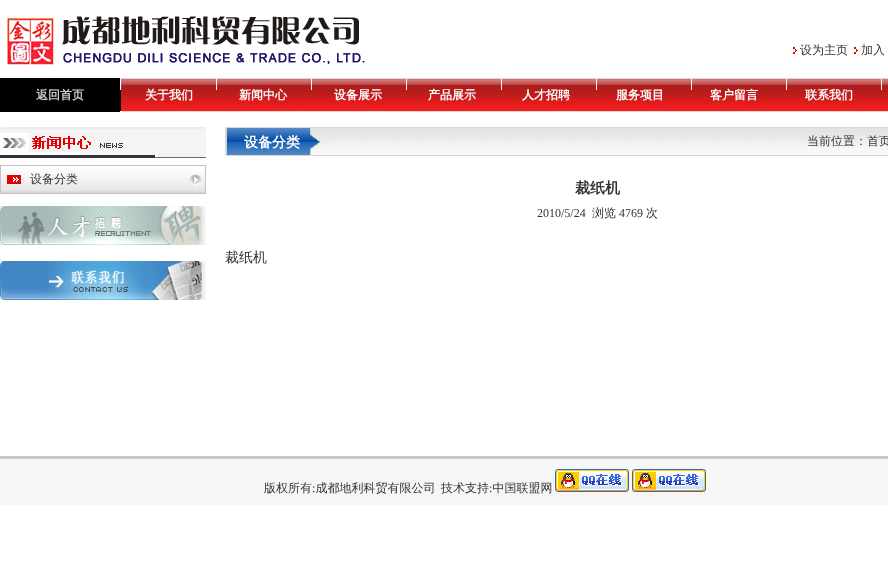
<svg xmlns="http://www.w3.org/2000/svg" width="888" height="565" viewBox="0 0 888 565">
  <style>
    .t1 { font: 500 12px WenQuanYi Zen Hei; fill: #333; }
    .t2 { font: bold 12px WenQuanYi Zen Hei; fill: #ccc; }
    .t3 { font: bold 12px WenQuanYi Zen Hei; fill: #fff; }
    .t4 { font: bold 14px WenQuanYi Zen Hei; fill: #fff; }
    .t5 { font: bold 15px WenQuanYi Zen Hei; fill: #333; }
    .t6 { font: 12px Liberation Serif; fill: #333; }
    .t7 { font: 500 14px WenQuanYi Zen Hei; fill: #333; }
  </style>
  <rect width="100%" height="100%" fill="#fff"/>
  <image x="6" y="16" width="359" height="62" href="images/1.png"/>
  <image x="793" y="47" width="4" height="7" href="images/2.png"/>
  <text x="800" y="54" class="t1">设为主页</text>
  <image x="854" y="47" width="4" height="7" href="images/2.png"/>
  <text x="861" y="54" class="t1">加入</text>
  <rect x="0" y="78" width="120" height="34" fill="#000"/>
  <text x="36" y="99" class="t2">返回首页</text>
  <image x="120" y="78" width="2" height="1" href="images/3.png"/>
  <image x="120" y="79" width="2" height="33" href="images/4.png"/>
  <image x="122" y="78" width="766" height="34" href="images/5.png"/>
  <text x="145" y="99" class="t3">关于我们</text>
  <text x="239" y="99" class="t3">新闻中心</text>
  <text x="334" y="99" class="t3">设备展示</text>
  <text x="428" y="99" class="t3">产品展示</text>
  <text x="522" y="99" class="t3">人才招聘</text>
  <text x="616" y="99" class="t3">服务项目</text>
  <text x="710" y="99" class="t3">客户留言</text>
  <text x="805" y="99" class="t3">联系我们</text>
  <image x="155" y="127" width="47" height="31" href="images/6.png"/>
  <image x="0" y="127" width="155" height="31" href="images/7.png"/>
  <image x="202" y="127" width="4" height="31" href="images/8.png"/>
  <image x="0" y="165" width="206" height="29" href="images/9.png"/>
  <text x="30" y="183" class="t1">设备分类</text>
  <image x="0" y="206" width="206" height="39" href="images/10.png"/>
  <image x="0" y="261" width="206" height="39" href="images/11.png"/>
  <image x="234" y="127" width="654" height="29" href="images/12.png"/>
  <image x="225" y="127" width="9" height="29" href="images/13.png"/>
  <image x="234" y="128" width="71" height="27" href="images/14.png"/>
  <text x="244" y="147" class="t4">设备分类</text>
  <image x="305" y="128" width="16" height="27" href="images/15.png"/>
  <text x="807" y="145" class="t1">当前位置：首页</text>
  <text x="575" y="193" class="t5">裁纸机</text>
  <text x="537" y="217" class="t6">2010/5/24</text>
  <text x="592" y="217" class="t1">浏览</text>
  <text x="619" y="217" class="t6">4769</text>
  <text x="646" y="217" class="t1">次</text>
  <text x="225" y="262" class="t7">裁纸机</text>
  <rect x="0" y="459" width="888" height="46" fill="#f6f6f6"/>
  <rect x="0" y="456" width="888" height="3" fill="#c6c6c6"/>
  <text x="264" y="492" class="t1">版权所有 成都地利科贸有限公司</text>
  <text x="441" y="492" class="t1">技术支持 中国联盟网</text>
  <image x="555" y="469" width="74" height="23" href="images/16.png"/>
  <image x="632" y="469" width="74" height="23" href="images/16.png"/>
  <text x="312" y="492" class="t6">:</text>
  <text x="489" y="492" class="t6">:</text>
</svg>
